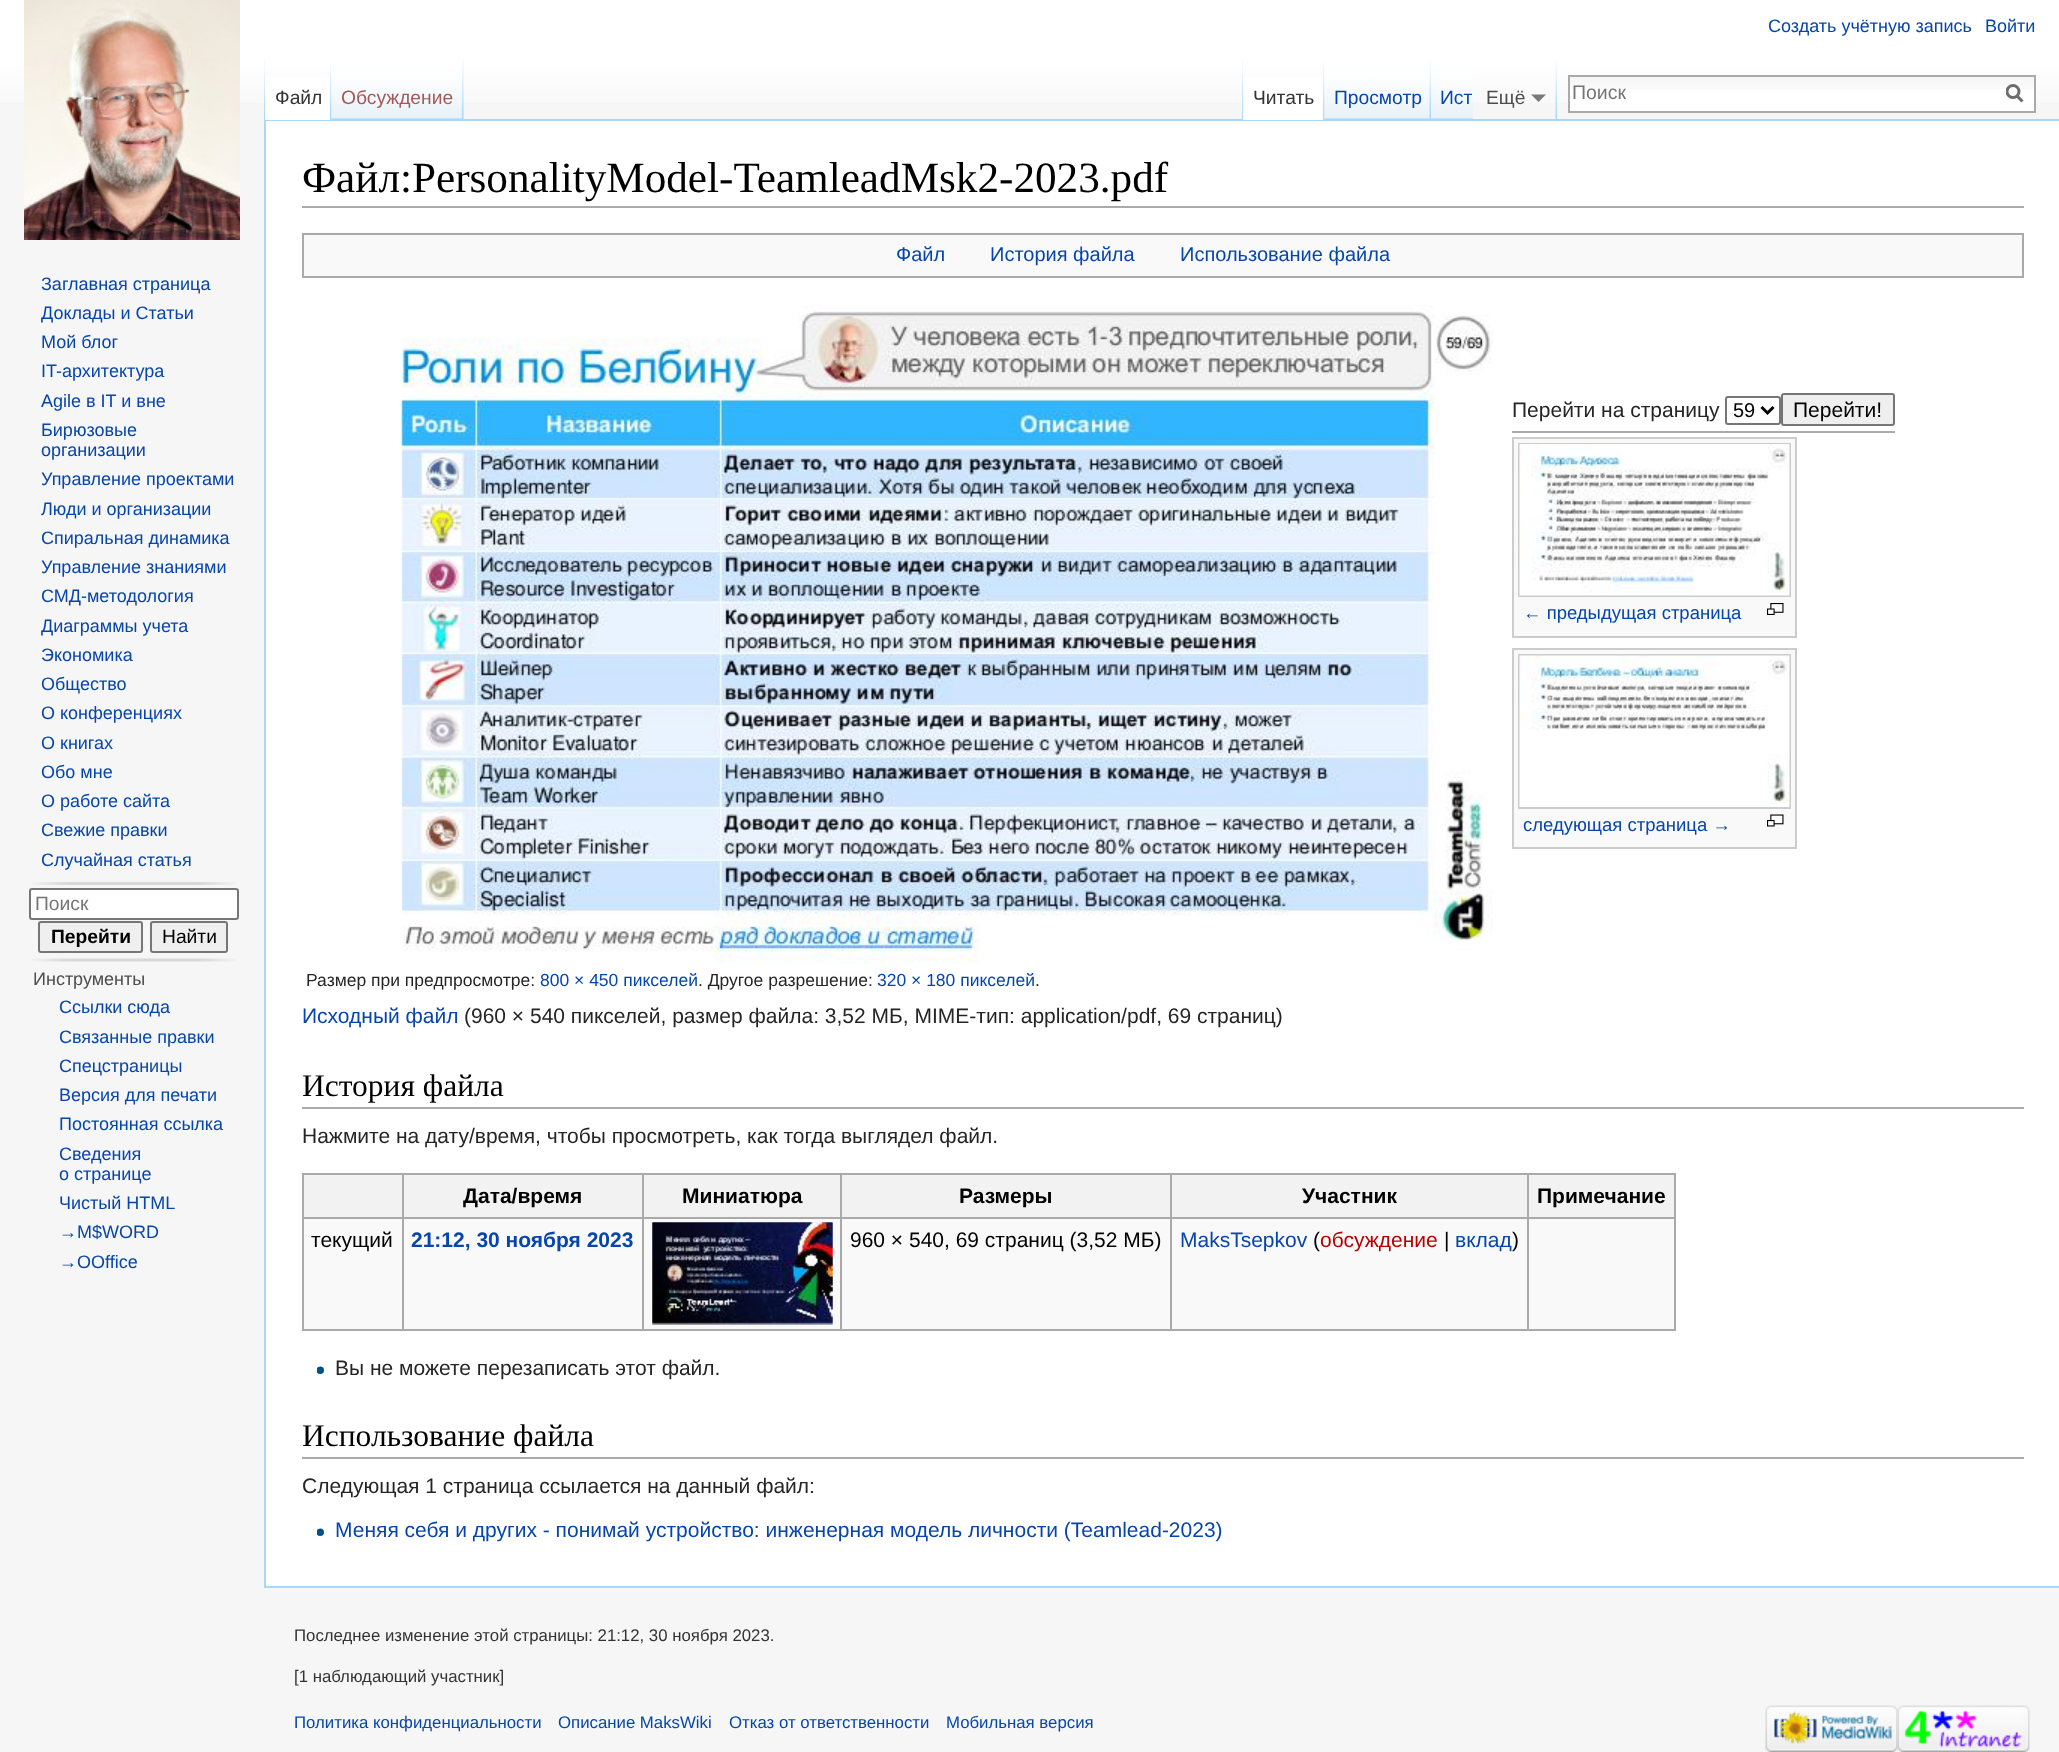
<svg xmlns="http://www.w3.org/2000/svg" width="2059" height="1752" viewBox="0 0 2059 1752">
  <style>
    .t1 { font: 18px Liberation Sans; fill: #0645ad; }
    .t2 { font: 19.25px Liberation Sans; fill: #333; }
    .t3 { font: 19.25px Liberation Sans; fill: #a55858; }
    .t4 { font: 19.25px Liberation Sans; fill: #0645ad; }
    .t5 { font: 19.25px Liberation Sans; fill: #4d4d4d; }
    .t6 { font: 19.5px Liberation Sans; fill: #757575; }
    .t7 { font: 19.25px Liberation Sans; fill: #757575; }
    .t8 { font: bold 19.25px Liberation Sans; fill: #000; }
    .t9 { font: 19.25px Liberation Sans; fill: #000; }
    .t10 { font: 18px Liberation Sans; fill: #4d4d4d; }
    .t11 { font: 43.2px Liberation Serif; fill: #000; }
    .t12 { font: 20px Liberation Sans; fill: #0645ad; }
    .t13 { font: 21px Liberation Sans; fill: #252525; }
    .t14 { font: 20px Liberation Sans; fill: #000; }
    .t15 { font: 21px Liberation Sans; fill: #000; }
    .t16 { font: 18.5px Liberation Sans; fill: #0645ad; }
    .t17 { font: 17.5px Liberation Sans; fill: #252525; }
    .t18 { font: 17.5px Liberation Sans; fill: #0645ad; }
    .t19 { font: 21px Liberation Sans; fill: #0645ad; }
    .t20 { font: 31.5px Liberation Serif; fill: #000; }
    .t21 { font: bold 21px Liberation Sans; fill: #000; }
    .t22 { font: bold 21px Liberation Sans; fill: #0645ad; }
    .t23 { font: 21px Liberation Sans; fill: #ba0000; }
    .t24 { font: 16.8px Liberation Sans; fill: #333; }
    .t25 { font: 16.8px Liberation Sans; fill: #0645ad; }
  </style>
  <defs>
    <linearGradient id="g1" gradientUnits="userSpaceOnUse" x1="1030" y1="0" x2="1030" y2="120"><stop offset="0.5" stop-color="#fff"/><stop offset="1" stop-color="#f6f6f6"/></linearGradient>
    <clipPath id="clip1"><rect x="2006" y="84" width="18" height="20"/></clipPath>
  </defs>
  <rect width="100%" height="100%" fill="#f6f6f6"/>
  <rect x="0" y="0" width="2059" height="103" fill="url(#g1)"/>
  <text x="1768" y="32" class="t1">Создать учётную запись</text>
  <text x="1985" y="32" class="t1">Войти</text>
  <image x="264" y="60" width="1" height="59" href="images/1.png"/>
  <rect x="264" y="119" width="1795" height="2" fill="#a7d7f9"/>
  <rect x="264" y="1586" width="1795" height="2" fill="#a7d7f9"/>
  <rect x="264" y="119" width="2" height="1468" fill="#a7d7f9"/>
  <rect x="265" y="77" width="67" height="43" fill="#fff"/>
  <image x="330" y="61" width="2" height="59" href="images/2.png"/>
  <text x="275" y="104" class="t2">Файл</text>
  <rect x="463" y="60" width="1" height="60" fill="#f3f3f3"/>
  <image x="331" y="60" width="133" height="60" href="images/3.png"/>
  <image x="462" y="61" width="2" height="59" href="images/4.png"/>
  <text x="341" y="104" class="t3">Обсуждение</text>
  <image x="1242" y="60" width="1" height="59" href="images/1.png"/>
  <rect x="1243" y="77" width="82" height="43" fill="#fff"/>
  <image x="1323" y="61" width="2" height="59" href="images/2.png"/>
  <text x="1253" y="104" class="t2">Читать</text>
  <image x="1324" y="60" width="107" height="60" href="images/5.png"/>
  <image x="1429" y="61" width="2" height="58" href="images/6.png"/>
  <text x="1334" y="104" class="t4">Просмотр</text>
  <image x="1431" y="60" width="42" height="60" href="images/7.png"/>
  <text x="1440" y="104" class="t4">Ист</text>
  <image x="1555" y="60" width="2" height="59" href="images/8.png"/>
  <text x="1486" y="104" class="t5">Ещё</text>
  <path d="M1546 94.5L1538.5 102L1531 94.5Z" fill="#797979"/>
  <rect x="1570" y="89" width="464" height="22" fill="#fff"/>
  <image x="1570" y="77" width="464" height="12" href="images/9.png"/>
  <rect x="1569" y="76" width="466" height="36" fill="none" stroke="#aaa" stroke-width="2"/>
  <text x="1572" y="99" class="t6">Поиск</text>
  <path d="M2022.5 101.5L2016.5 95.5" fill="none" stroke="#6c6c6c" stroke-width="3"/>
  <g clip-path="url(#clip1)">
    <circle cx="2013" cy="91.5" r="6" fill="none" stroke="#6c6c6c" stroke-width="3"/>
  </g>
  <image x="24" y="0" width="216" height="240" href="images/10.png"/>
  <text x="41" y="290" class="t1">Заглавная страница</text>
  <text x="41" y="319" class="t1">Доклады и Статьи</text>
  <text x="41" y="348" class="t1">Мой блог</text>
  <text x="41" y="377" class="t1">IT-архитектура</text>
  <text x="41" y="407" class="t1">Agile в IT и вне</text>
  <text x="41" y="436" class="t1">Бирюзовые</text>
  <text x="41" y="456" class="t1">организации</text>
  <text x="41" y="485" class="t1">Управление проектами</text>
  <text x="41" y="515" class="t1">Люди и организации</text>
  <text x="41" y="544" class="t1">Спиральная динамика</text>
  <text x="41" y="573" class="t1">Управление знаниями</text>
  <text x="41" y="602" class="t1">СМД-методология</text>
  <text x="41" y="632" class="t1">Диаграммы учета</text>
  <text x="41" y="661" class="t1">Экономика</text>
  <text x="41" y="690" class="t1">Общество</text>
  <text x="41" y="719" class="t1">О конференциях</text>
  <text x="41" y="749" class="t1">О книгах</text>
  <text x="41" y="778" class="t1">Обо мне</text>
  <text x="41" y="807" class="t1">О работе сайта</text>
  <text x="41" y="836" class="t1">Свежие правки</text>
  <text x="41" y="866" class="t1">Случайная статья</text>
  <image x="32" y="882" width="204" height="3" href="images/11.png"/>
  <rect x="30" y="889" width="208" height="30" rx="2" fill="#fff" stroke="#767676" stroke-width="2"/>
  <text x="35" y="910" class="t7">Поиск</text>
  <rect x="39" y="922" width="103" height="30" rx="2" fill="#efefef" stroke="#767676" stroke-width="2"/>
  <text x="51" y="943" class="t8">Перейти</text>
  <rect x="151" y="922" width="76" height="30" rx="2" fill="#efefef" stroke="#767676" stroke-width="2"/>
  <text x="162" y="943" class="t9">Найти</text>
  <image x="32" y="958" width="204" height="4" href="images/12.png"/>
  <text x="33" y="985" class="t10">Инструменты</text>
  <text x="59" y="1013" class="t1">Ссылки сюда</text>
  <text x="59" y="1043" class="t1">Связанные правки</text>
  <text x="59" y="1072" class="t1">Спецстраницы</text>
  <text x="59" y="1101" class="t1">Версия для печати</text>
  <text x="59" y="1130" class="t1">Постоянная ссылка</text>
  <text x="59" y="1160" class="t1">Сведения</text>
  <text x="59" y="1180" class="t1">о странице</text>
  <text x="59" y="1209" class="t1">Чистый HTML</text>
  <text x="59" y="1238" class="t1">→M$WORD</text>
  <text x="59" y="1268" class="t1">→OOffice</text>
  <rect x="266" y="121" width="1793" height="1465" fill="#fff"/>
  <rect x="302" y="206" width="1722" height="2" fill="#aaa"/>
  <text x="302" y="192" class="t11">Файл:PersonalityModel-TeamleadMsk2-2023.pdf</text>
  <rect x="303" y="234" width="1720" height="43" fill="#f9f9f9" stroke="#aaa" stroke-width="2"/>
  <text x="896" y="261" class="t12">Файл</text>
  <text x="990" y="261" class="t12">История файла</text>
  <text x="1180" y="261" class="t12">Использование файла</text>
  <text x="1512" y="417" class="t13">Перейти на страницу</text>
  <rect x="1726" y="397" width="54" height="27" rx="2" fill="none" stroke="#767676" stroke-width="2"/>
  <path d="M1761.5 407L1767.5 413L1773.5 407" fill="none" stroke="#000" stroke-width="3"/>
  <text x="1733" y="417" class="t14">59</text>
  <rect x="1782" y="394" width="112" height="31" rx="2" fill="#efefef" stroke="#767676" stroke-width="2"/>
  <text x="1793" y="417" class="t15">Перейти!</text>
  <rect x="1512" y="431" width="383" height="2" fill="#aaa"/>
  <rect x="1513" y="438" width="283" height="199" fill="#f9f9f9" stroke="#ccc" stroke-width="2"/>
  <rect x="1519" y="444" width="271" height="152" fill="none" stroke="#ccc" stroke-width="2"/>
  <image x="1519" y="444" width="271" height="152" href="images/13.png"/>
  <text x="1523" y="619" class="t16">← предыдущая страница</text>
  <image x="1767" y="603" width="17" height="12" href="images/14.png"/>
  <rect x="1513" y="649" width="283" height="199" fill="#f9f9f9" stroke="#ccc" stroke-width="2"/>
  <rect x="1519" y="655" width="271" height="153" fill="none" stroke="#ccc" stroke-width="2"/>
  <image x="1519" y="655" width="271" height="152" href="images/15.png"/>
  <text x="1523" y="831" class="t16">следующая страница →</text>
  <image x="1767" y="814" width="17" height="13" href="images/16.png"/>
  <image x="400" y="305" width="1093" height="659" href="images/17.png"/>
  <text x="306" y="986" class="t17">Размер при предпросмотре:</text>
  <text x="540" y="986" class="t18">800 × 450 пикселей</text>
  <text x="698" y="986" class="t17">. Другое разрешение:</text>
  <text x="877" y="986" class="t18">320 × 180 пикселей</text>
  <text x="1035" y="986" class="t17">.</text>
  <text x="302" y="1023" class="t19">Исходный файл</text>
  <text x="464" y="1023" class="t13">(960 × 540 пикселей, размер файла: 3,52 МБ, MIME-тип: application/pdf, 69 страниц)</text>
  <rect x="302" y="1107" width="1722" height="2" fill="#aaa"/>
  <text x="302" y="1096" class="t20">История файла</text>
  <text x="302" y="1143" class="t13">Нажмите на дату/время, чтобы просмотреть, как тогда выглядел файл.</text>
  <rect x="304" y="1219" width="1370" height="110" fill="#f9f9f9"/>
  <rect x="302" y="1173" width="1374" height="2" fill="#aaa"/>
  <rect x="1674" y="1173" width="2" height="158" fill="#aaa"/>
  <rect x="302" y="1329" width="1374" height="2" fill="#aaa"/>
  <rect x="302" y="1173" width="2" height="158" fill="#aaa"/>
  <rect x="304" y="1175" width="98" height="42" fill="#f2f2f2"/>
  <rect x="404" y="1175" width="238" height="42" fill="#f2f2f2"/>
  <rect x="1527" y="1217" width="149" height="2" fill="#aaa"/>
  <rect x="1527" y="1217" width="2" height="114" fill="#aaa"/>
  <rect x="1170" y="1217" width="359" height="2" fill="#aaa"/>
  <rect x="1170" y="1217" width="2" height="114" fill="#aaa"/>
  <rect x="840" y="1217" width="332" height="2" fill="#aaa"/>
  <rect x="840" y="1217" width="2" height="114" fill="#aaa"/>
  <rect x="642" y="1217" width="200" height="2" fill="#aaa"/>
  <rect x="642" y="1217" width="2" height="114" fill="#aaa"/>
  <rect x="402" y="1217" width="242" height="2" fill="#aaa"/>
  <rect x="402" y="1217" width="2" height="114" fill="#aaa"/>
  <rect x="302" y="1217" width="102" height="2" fill="#aaa"/>
  <rect x="402" y="1173" width="2" height="45" fill="#aaa"/>
  <text x="463" y="1203" class="t21">Дата/время</text>
  <rect x="644" y="1175" width="196" height="42" fill="#f2f2f2"/>
  <rect x="642" y="1173" width="2" height="45" fill="#aaa"/>
  <text x="682" y="1203" class="t21">Миниатюра</text>
  <rect x="842" y="1175" width="328" height="42" fill="#f2f2f2"/>
  <rect x="840" y="1173" width="2" height="45" fill="#aaa"/>
  <text x="959" y="1203" class="t21">Размеры</text>
  <rect x="1172" y="1175" width="355" height="42" fill="#f2f2f2"/>
  <rect x="1170" y="1173" width="2" height="45" fill="#aaa"/>
  <text x="1302" y="1203" class="t21">Участник</text>
  <rect x="1529" y="1175" width="145" height="42" fill="#f2f2f2"/>
  <rect x="1527" y="1173" width="2" height="45" fill="#aaa"/>
  <text x="1537" y="1203" class="t21">Примечание</text>
  <text x="311" y="1247" class="t15">текущий</text>
  <text x="411" y="1247" class="t22">21:12, 30 ноября 2023</text>
  <rect x="653" y="1223" width="180" height="102" fill="#fff"/>
  <image x="652" y="1222" width="181" height="103" href="images/18.png"/>
  <image x="652" y="1222" width="181" height="103" href="images/19.png"/>
  <text x="850" y="1247" class="t15">960 × 540, 69 страниц (3,52 МБ)</text>
  <text x="1180" y="1247" class="t19">MaksTsepkov</text>
  <text x="1313" y="1247" class="t15">(</text>
  <text x="1320" y="1247" class="t23">обсуждение</text>
  <text x="1444" y="1247" class="t15">|</text>
  <text x="1455" y="1247" class="t19">вклад</text>
  <text x="1512" y="1247" class="t15">)</text>
  <image x="317" y="1366" width="7" height="8" href="images/20.png"/>
  <text x="335" y="1375" class="t13">Вы не можете перезаписать этот файл.</text>
  <rect x="302" y="1457" width="1722" height="2" fill="#aaa"/>
  <text x="302" y="1446" class="t20">Использование файла</text>
  <text x="302" y="1493" class="t13">Следующая 1 страница ссылается на данный файл:</text>
  <image x="317" y="1528" width="7" height="8" href="images/20.png"/>
  <text x="335" y="1537" class="t19">Меняя себя и других - понимай устройство: инженерная модель личности (Teamlead-2023)</text>
  <text x="294" y="1641" class="t24">Последнее изменение этой страницы: 21:12, 30 ноября 2023.</text>
  <text x="294" y="1682" class="t24">[1 наблюдающий участник]</text>
  <text x="294" y="1728" class="t25">Политика конфиденциальности</text>
  <text x="558" y="1728" class="t25">Описание MaksWiki</text>
  <text x="729" y="1728" class="t25">Отказ от ответственности</text>
  <text x="946" y="1728" class="t25">Мобильная версия</text>
  <image x="1765" y="1705" width="133" height="47" href="images/21.png"/>
  <image x="1897" y="1705" width="133" height="47" href="images/22.png"/>
</svg>
